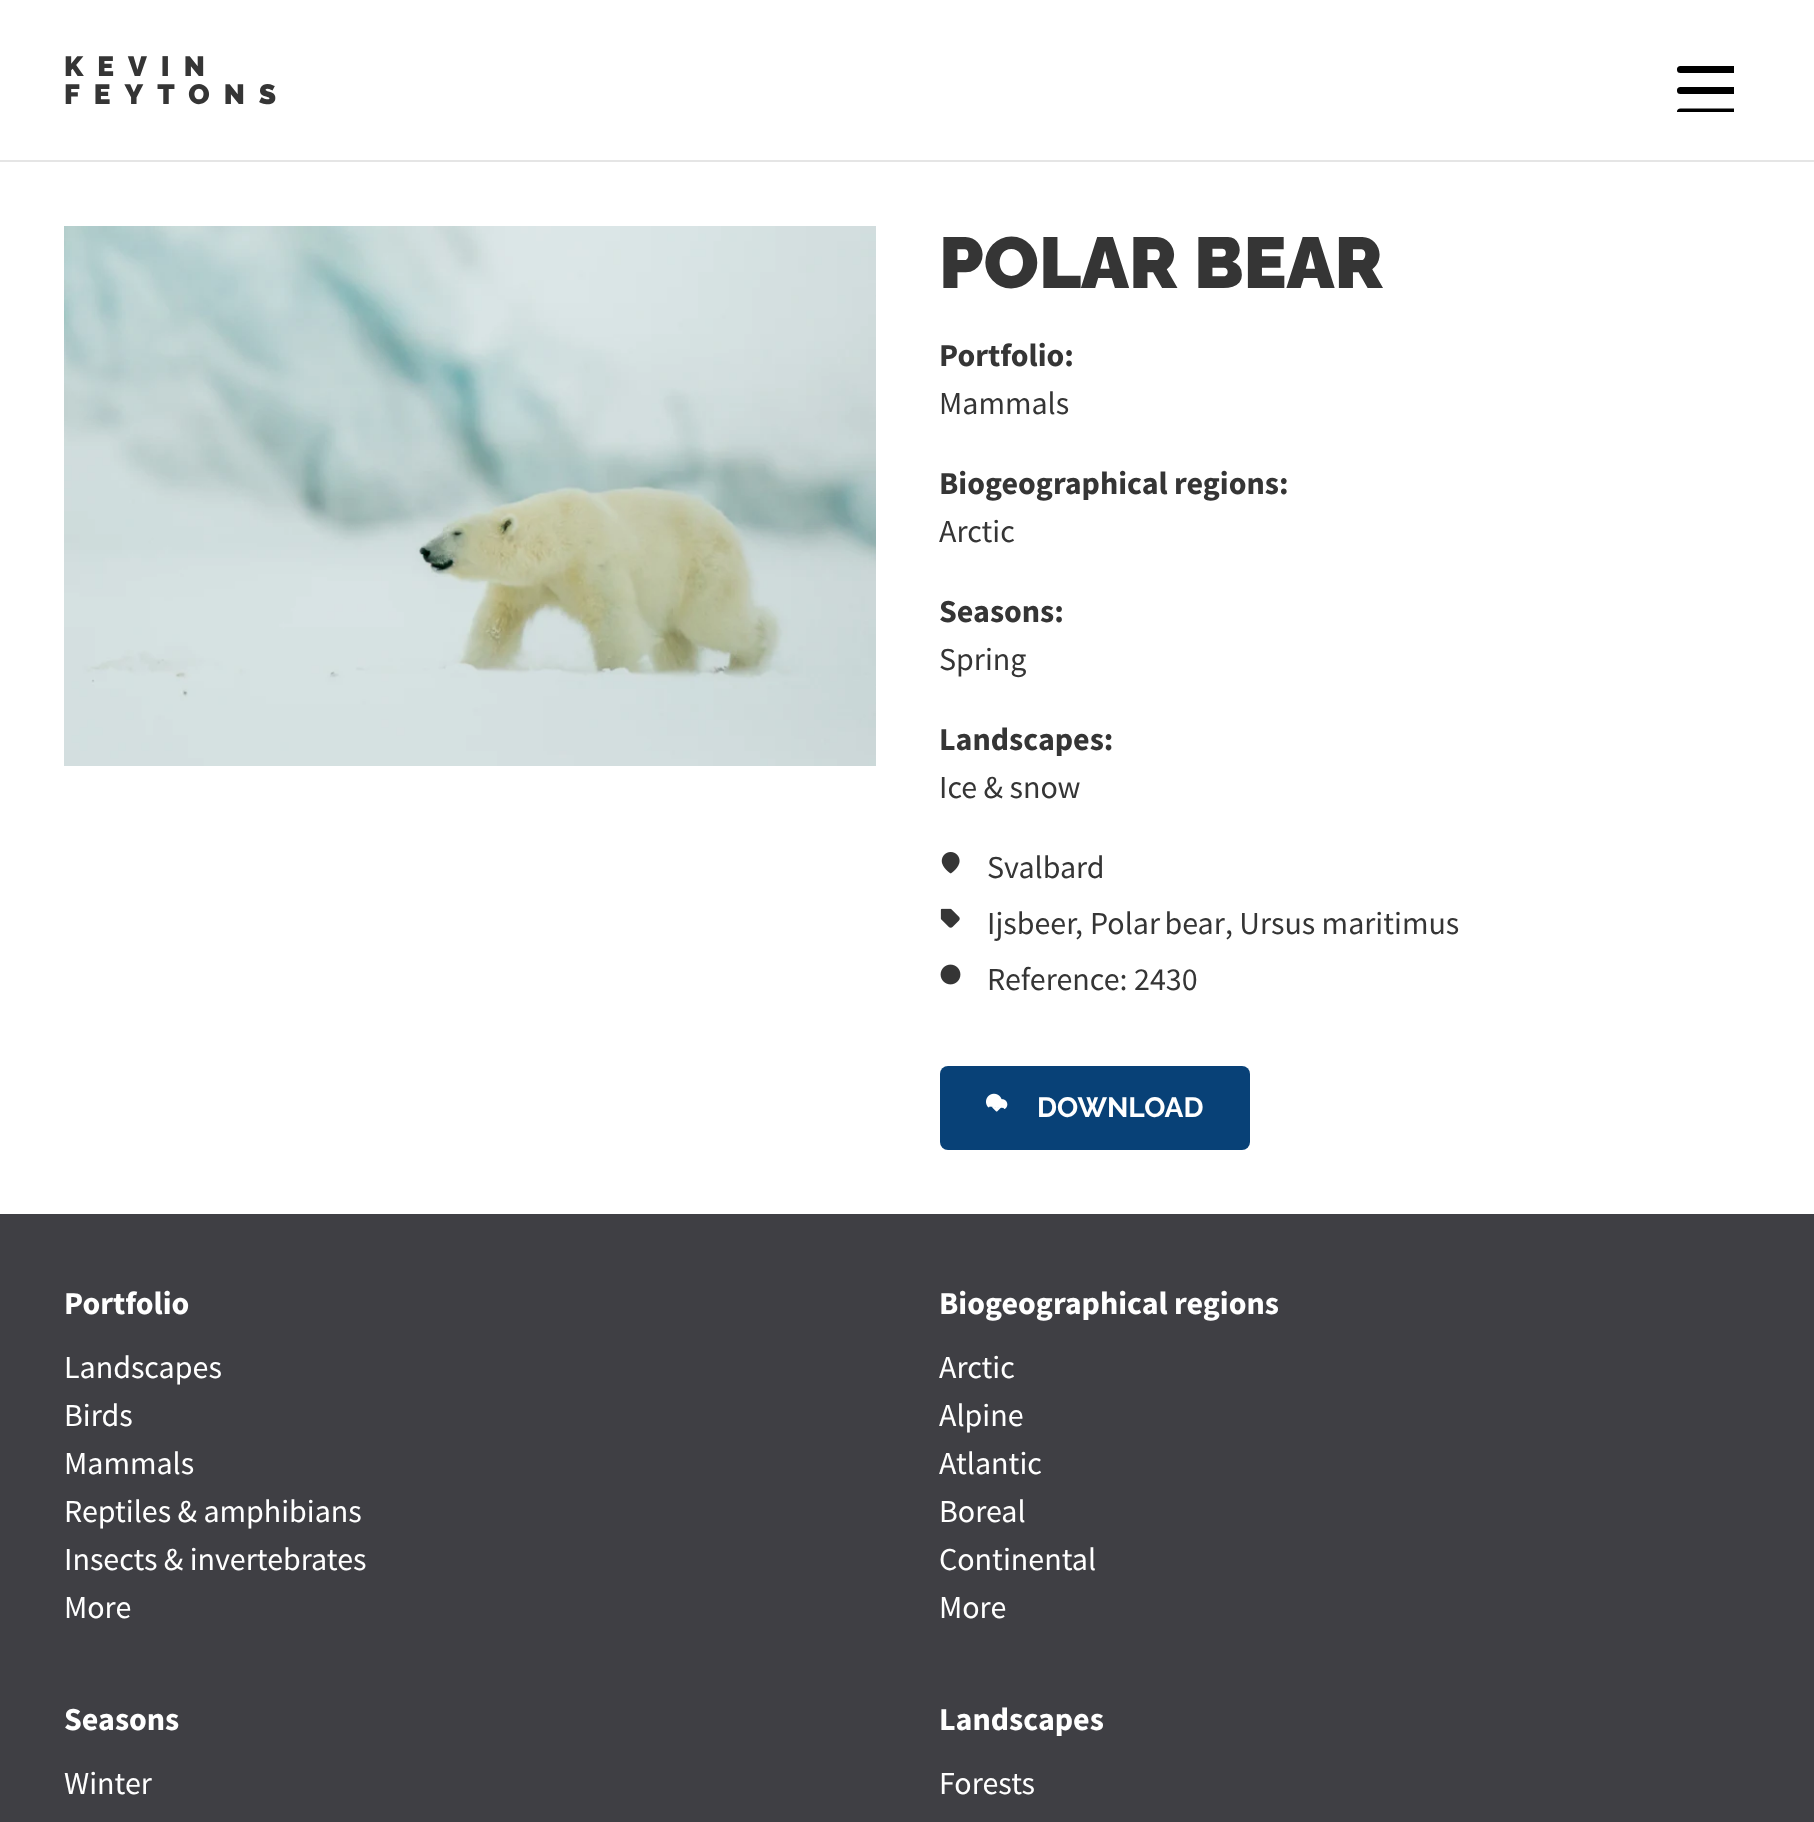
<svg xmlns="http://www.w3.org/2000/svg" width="1814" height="1822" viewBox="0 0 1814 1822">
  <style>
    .t1 { font: 900 28px Raleway; letter-spacing: 14px; fill: #353535; }
    .t2 { font: 900 72px Raleway; fill: #353535; }
    .t3 { font: bold 32px Source Sans Pro; fill: #353535; }
    .t4 { font: 32px Source Sans Pro; fill: #353535; }
    .t5 { font: bold 28px Raleway; fill: #fff; }
    .t6 { font: bold 32px Source Sans Pro; fill: #fff; }
    .t7 { font: 32px Source Sans Pro; fill: #fff; }
  </style>
  <defs>
    <clipPath id="clip1"><rect x="1670" y="48" width="64" height="64"/></clipPath>
  </defs>
  <rect width="100%" height="100%" fill="#fff"/>
  <rect x="0" y="160" width="1814" height="2" fill="#e5e5e5"/>
  <text x="64" y="76" class="t1">KEVIN</text>
  <text x="64" y="104" class="t1">FEYTONS</text>
  <g clip-path="url(#clip1)">
    <path d="M1680.5 90.5H1744.5M1680.5 69.5H1744.5M1680.5 112H1744.5" fill="none" stroke="#000" stroke-width="7.1" stroke-linecap="round" stroke-linejoin="round"/>
  </g>
  <image x="64" y="226" width="812" height="540" href="images/1.png"/>
  <text x="939" y="288" class="t2">POLAR BEAR</text>
  <text x="939" y="366" class="t3">Portfolio:</text>
  <text x="939" y="414" class="t4">Mammals</text>
  <text x="939" y="494" class="t3">Biogeographical regions:</text>
  <text x="939" y="542" class="t4">Arctic</text>
  <text x="939" y="622" class="t3">Seasons:</text>
  <text x="939" y="670" class="t4">Spring</text>
  <text x="939" y="750" class="t3">Landscapes:</text>
  <text x="939" y="798" class="t4">Ice &amp; snow</text>
  <image x="941" y="852" width="19" height="22" href="images/2.png"/>
  <text x="987" y="878" class="t4">Svalbard</text>
  <image x="940" y="908" width="20" height="20" href="images/3.png"/>
  <text x="987" y="934" class="t4">Ijsbeer</text>
  <text x="1075" y="934" class="t4">,</text>
  <text x="1090" y="934" word-spacing="-2" class="t4">Polar bear</text>
  <text x="1225" y="934" class="t4">, Ursus maritimus</text>
  <image x="940" y="964" width="21" height="21" href="images/4.png"/>
  <text x="987" y="990" class="t4">Reference: 2430</text>
  <rect x="940" y="1066" width="310" height="84" rx="8" fill="#084177"/>
  <image x="986" y="1093" width="22" height="19" href="images/5.png"/>
  <text x="1037" y="1117" class="t5">DOWNLOAD</text>
  <rect x="0" y="1214" width="1814" height="608" fill="#3f3f44"/>
  <text x="64" y="1314" class="t6">Portfolio</text>
  <text x="64" y="1378" class="t7">Landscapes</text>
  <text x="64" y="1426" class="t7">Birds</text>
  <text x="64" y="1474" class="t7">Mammals</text>
  <text x="64" y="1522" class="t7">Reptiles &amp; amphibians</text>
  <text x="64" y="1570" class="t7">Insects &amp; invertebrates</text>
  <text x="64" y="1618" class="t7">More</text>
  <text x="939" y="1314" class="t6">Biogeographical regions</text>
  <text x="939" y="1378" class="t7">Arctic</text>
  <text x="939" y="1426" class="t7">Alpine</text>
  <text x="939" y="1474" class="t7">Atlantic</text>
  <text x="939" y="1522" class="t7">Boreal</text>
  <text x="939" y="1570" class="t7">Continental</text>
  <text x="939" y="1618" class="t7">More</text>
  <text x="64" y="1730" class="t6">Seasons</text>
  <text x="64" y="1794" class="t7">Winter</text>
  <text x="939" y="1730" class="t6">Landscapes</text>
  <text x="939" y="1794" class="t7">Forests</text>
</svg>
